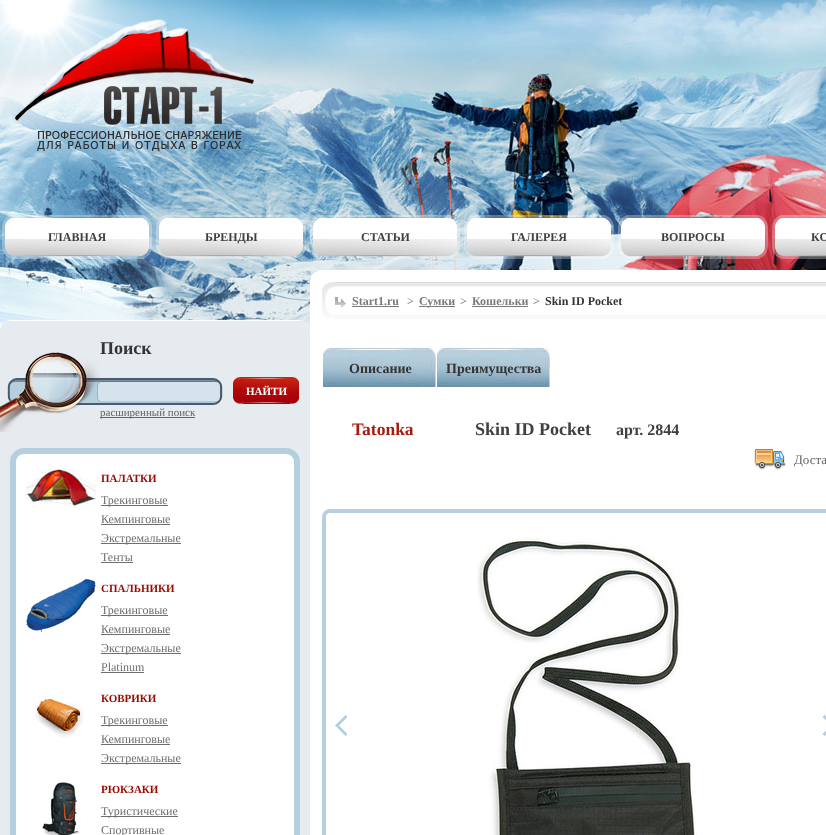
<svg xmlns="http://www.w3.org/2000/svg" width="826" height="835" viewBox="0 0 826 835">
  <style>
    .t1 { font: bold 12px Liberation Serif; fill: #404040; }
    .t2 { font: bold 18px Liberation Serif; fill: #343434; }
    .t3 { font: bold 11px Liberation Serif; fill: #fff; }
    .t4 { font: 11px Liberation Serif; fill: #656565; }
    .t5 { font: bold 11px Liberation Serif; fill: #990b00; }
    .t6 { font: 12px Liberation Serif; fill: #6f6f6f; }
    .t7 { font: bold 12px Liberation Serif; fill: #7a7a7a; }
    .t8 { font: 12px Liberation Serif; fill: #656565; }
    .t9 { font: bold 12px Liberation Serif; fill: #343434; }
    .t10 { font: bold 14px Liberation Serif; fill: #343434; }
    .t11 { font: bold 17.5px Liberation Serif; fill: #a61c10; }
    .t12 { font: bold 18px Liberation Serif; fill: #404040; }
    .t13 { font: bold 16px Liberation Serif; fill: #404040; }
    .t14 { font: 13px Liberation Serif; fill: #656565; }
  </style>
  <rect width="100%" height="100%" fill="#fff"/>
  <image x="0" y="0" width="826" height="332" href="images/1.png"/>
  <image x="15" y="19" width="239" height="132" href="images/2.png"/>
  <image x="2" y="215" width="150" height="44" href="images/3.png"/>
  <text x="48" y="241" class="t1">ГЛАВНАЯ</text>
  <image x="156" y="215" width="150" height="44" href="images/4.png"/>
  <text x="205" y="241" class="t1">БРЕНДЫ</text>
  <image x="310" y="215" width="150" height="44" href="images/5.png"/>
  <text x="361" y="241" class="t1">СТАТЬИ</text>
  <image x="464" y="215" width="150" height="44" href="images/6.png"/>
  <text x="511" y="241" class="t1">ГАЛЕРЕЯ</text>
  <image x="618" y="215" width="150" height="44" href="images/7.png"/>
  <text x="661" y="241" class="t1">ВОПРОСЫ</text>
  <image x="772" y="215" width="54" height="44" href="images/8.png"/>
  <text x="811" y="241" class="t1">КО</text>
  <rect x="0" y="320" width="310" height="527" rx="12" fill="#fff"/>
  <image x="0" y="321" width="310" height="514" href="images/9.png"/>
  <image x="0" y="352" width="223" height="80" href="images/11.png"/>
  <text x="100" y="354" class="t2">Поиск</text>
  <image x="233" y="377" width="66" height="27" href="images/10.png"/>
  <text x="246" y="395" class="t3">НАЙТИ</text>
  <rect x="100" y="417" width="95" height="1" fill="#656565"/>
  <text x="100" y="416" class="t4">расширенный поиск</text>
  <rect x="13" y="451" width="284" height="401" rx="11" fill="#fff" stroke="#b6cfde" stroke-width="6"/>
  <image x="26" y="469" width="70" height="39" href="images/12.png"/>
  <text x="101" y="482" class="t5">ПАЛАТКИ</text>
  <rect x="101" y="505" width="67" height="1" fill="#6f6f6f"/>
  <text x="101" y="504" class="t6">Трекинговые</text>
  <text x="101" y="523" class="t6">Кемпинговые</text>
  <rect x="101" y="524" width="69" height="1" fill="#6f6f6f"/>
  <rect x="101" y="543" width="80" height="1" fill="#6f6f6f"/>
  <text x="101" y="542" class="t6">Экстремальные</text>
  <text x="101" y="561" class="t6">Тенты</text>
  <rect x="101" y="562" width="32" height="1" fill="#6f6f6f"/>
  <image x="26" y="579" width="70" height="53" href="images/13.png"/>
  <text x="101" y="592" class="t5">СПАЛЬНИКИ</text>
  <rect x="101" y="615" width="67" height="1" fill="#6f6f6f"/>
  <text x="101" y="614" class="t6">Трекинговые</text>
  <text x="101" y="633" class="t6">Кемпинговые</text>
  <rect x="101" y="634" width="69" height="1" fill="#6f6f6f"/>
  <rect x="101" y="653" width="80" height="1" fill="#6f6f6f"/>
  <text x="101" y="652" class="t6">Экстремальные</text>
  <text x="101" y="671" class="t6">Platinum</text>
  <rect x="101" y="672" width="43" height="1" fill="#6f6f6f"/>
  <image x="34" y="699" width="50" height="39" href="images/14.png"/>
  <text x="101" y="702" class="t5">КОВРИКИ</text>
  <rect x="101" y="725" width="67" height="1" fill="#6f6f6f"/>
  <text x="101" y="724" class="t6">Трекинговые</text>
  <text x="101" y="743" class="t6">Кемпинговые</text>
  <rect x="101" y="744" width="69" height="1" fill="#6f6f6f"/>
  <rect x="101" y="763" width="80" height="1" fill="#6f6f6f"/>
  <text x="101" y="762" class="t6">Экстремальные</text>
  <image x="42" y="782" width="37" height="53" href="images/15.png"/>
  <text x="101" y="793" class="t5">РЮКЗАКИ</text>
  <rect x="101" y="816" width="77" height="1" fill="#6f6f6f"/>
  <text x="101" y="815" class="t6">Туристические</text>
  <text x="101" y="834" class="t6">Спортивные</text>
  <rect x="310" y="270" width="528" height="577" rx="12" fill="#fff"/>
  <image x="335" y="282" width="491" height="37" href="images/16.png"/>
  <image x="322" y="282" width="13" height="36" href="images/17.png"/>
  <image x="335" y="297" width="11" height="11" href="images/18.png"/>
  <text x="352" y="305" class="t7">Start1.ru</text>
  <rect x="352" y="306" width="47" height="1" fill="#7a7a7a"/>
  <text x="407" y="305" class="t8">&gt;</text>
  <rect x="419" y="306" width="36" height="1" fill="#7a7a7a"/>
  <text x="419" y="305" class="t7">Сумки</text>
  <text x="460" y="305" class="t8">&gt;</text>
  <text x="472" y="305" class="t7">Кошельки</text>
  <rect x="472" y="306" width="56" height="1" fill="#7a7a7a"/>
  <text x="533" y="305" class="t8">&gt;</text>
  <text x="545" y="305" class="t9">Skin ID Pocket</text>
  <image x="323" y="347" width="113" height="40" href="images/19.png"/>
  <text x="349" y="373" class="t10">Описание</text>
  <image x="437" y="347" width="113" height="40" href="images/19.png"/>
  <text x="446" y="373" class="t10">Преимущества</text>
  <text x="352" y="435" class="t11">Tatonka</text>
  <text x="475" y="435" class="t12">Skin ID Pocket</text>
  <text x="616" y="435" class="t13">арт. 2844</text>
  <image x="754" y="449" width="32" height="21" href="images/20.png"/>
  <text x="794" y="464" class="t14">Доста</text>
  <rect x="324" y="511" width="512" height="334" rx="6" fill="none" stroke="#b7cfde" stroke-width="4"/>
  <image x="477" y="537" width="220" height="298" href="images/21.png"/>
  <image x="335" y="715" width="12" height="21" href="images/22.png"/>
  <image x="823" y="715" width="3" height="21" href="images/23.png"/>
</svg>
